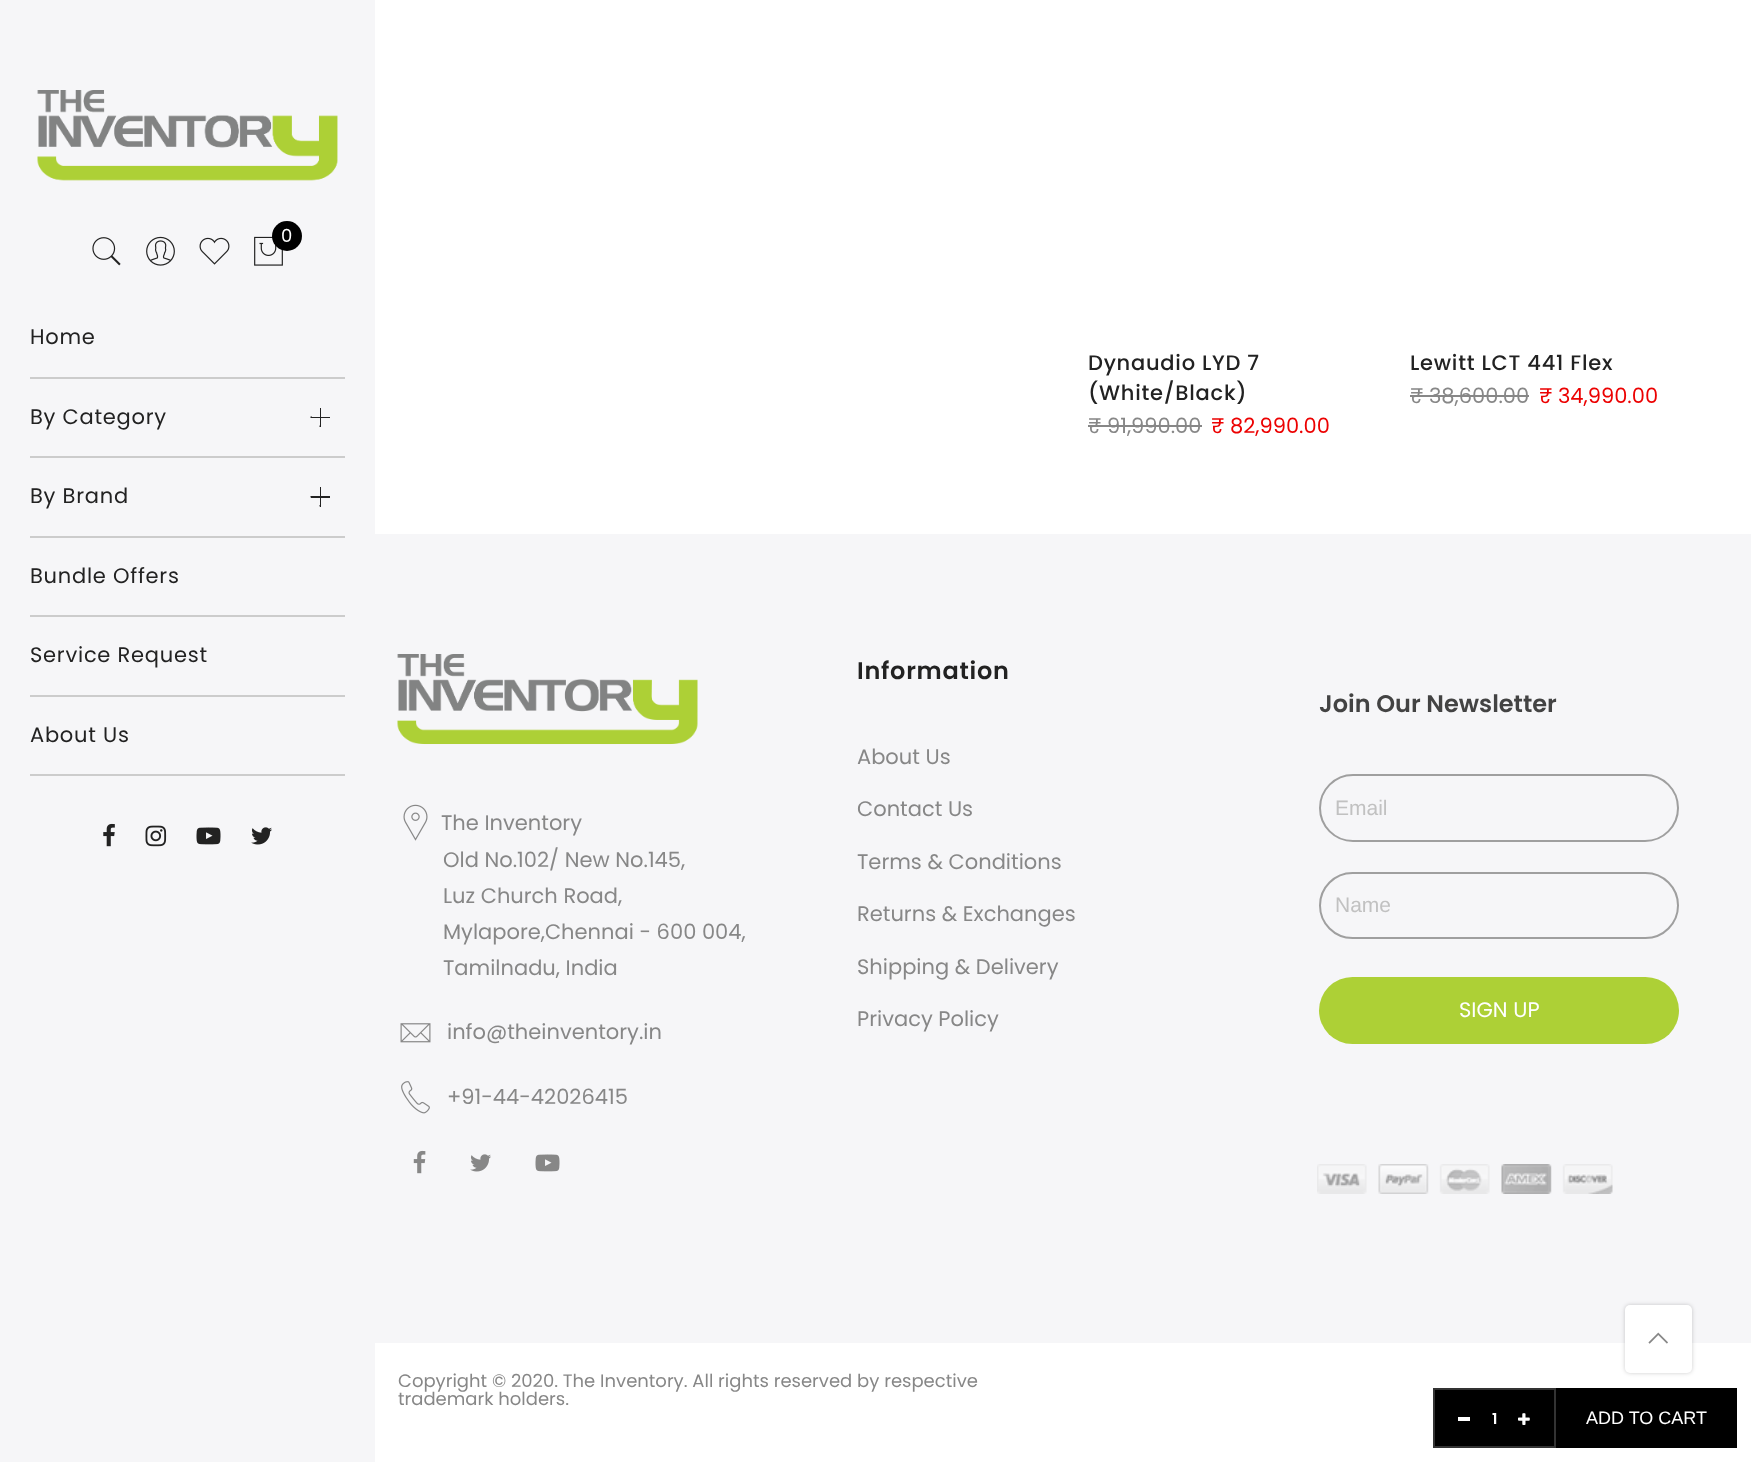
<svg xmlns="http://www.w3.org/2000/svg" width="1751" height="1462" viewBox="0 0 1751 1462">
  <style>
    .t1 { font: 18px Poppins; fill: #fff; }
    .t2 { font: 21px Poppins; letter-spacing: 0.75px; fill: #222; }
    .t3 { font: 500 21px Poppins; letter-spacing: 0.75px; fill: #222; }
    .t4 { font: 21px Poppins; fill: #878787; }
    .t5 { font: 21px Poppins; fill: #ec0101; }
    .t6 { font: 600 15px Poppins; fill: #fff; }
    .t7 { font: 18px Liberation Sans; fill: #fff; }
    .t8 { font: 600 24px Poppins; letter-spacing: 0.75px; fill: #222; }
    .t9 { font: 600 24px Poppins; fill: #434343; }
    .t10 { font: 21px Liberation Sans; fill: #c1c1c1; }
    .t11 { font: 21px Poppins; fill: #fff; }
    .t12 { font: 18px Poppins; fill: #878787; }
  </style>
  <rect width="100%" height="100%" fill="#fff"/>
  <rect x="0" y="0" width="375" height="1462" fill="#f6f6f8"/>
  <image x="37" y="90" width="301" height="91" href="images/1.png"/>
  <image x="92" y="237" width="29" height="29" href="images/2.png"/>
  <image x="146" y="236" width="29" height="30" href="images/3.png"/>
  <image x="199" y="237" width="31" height="28" href="images/4.png"/>
  <image x="254" y="236" width="29" height="30" href="images/5.png"/>
  <circle cx="287" cy="236" r="15" fill="#000"/>
  <text x="281" y="242" class="t1">0</text>
  <rect x="30" y="377" width="315" height="2" fill="#ccc"/>
  <text x="30" y="344" class="t2">Home</text>
  <rect x="30" y="456" width="315" height="2" fill="#ccc"/>
  <text x="30" y="424" class="t2">By Category</text>
  <rect x="320" y="408" width="1" height="19" fill="#222"/>
  <path d="M319.5 427V425.5H321V427ZM310.5 418V416.5H312V418Z" fill="#222"/>
  <rect x="311" y="417" width="19" height="1" fill="#222"/>
  <rect x="30" y="536" width="315" height="2" fill="#ccc"/>
  <text x="30" y="503" class="t2">By Brand</text>
  <rect x="320" y="487" width="1" height="20" fill="#222"/>
  <path d="M319.5 506.5V505H321V506.5ZM310.5 497.5V496H312V497.5Z" fill="#222"/>
  <rect x="311" y="496" width="19" height="2" fill="#222"/>
  <rect x="30" y="615" width="315" height="2" fill="#ccc"/>
  <text x="30" y="583" class="t2">Bundle Offers</text>
  <rect x="30" y="695" width="315" height="2" fill="#ccc"/>
  <text x="30" y="662" class="t2">Service Request</text>
  <rect x="30" y="774" width="315" height="2" fill="#ccc"/>
  <text x="30" y="742" class="t2">About Us</text>
  <image x="103" y="823" width="12" height="24" href="images/6.png"/>
  <image x="145" y="825" width="22" height="22" href="images/7.png"/>
  <image x="196" y="827" width="25" height="18" href="images/8.png"/>
  <image x="251" y="827" width="21" height="18" href="images/9.png"/>
  <text x="1088" y="370" class="t3">Dynaudio LYD 7</text>
  <text x="1088" y="400" class="t3">(White/Black)</text>
  <text x="1088" y="433" class="t4">₹ 91,990.00</text>
  <rect x="1088" y="425" width="114" height="2" fill="#878787"/>
  <text x="1211" y="433" class="t5">₹ 82,990.00</text>
  <text x="1410" y="370" class="t3">Lewitt LCT 441 Flex</text>
  <text x="1410" y="403" class="t4">₹ 38,600.00</text>
  <rect x="1410" y="395" width="119" height="2" fill="#878787"/>
  <text x="1539" y="403" class="t5">₹ 34,990.00</text>
  <rect x="1435" y="1388" width="302" height="60" fill="#000"/>
  <rect x="1434" y="1389" width="121" height="58" fill="none" stroke="#333" stroke-width="2"/>
  <rect x="1458" y="1417" width="12" height="4" fill="#fff"/>
  <image x="1518" y="1413" width="12" height="12" href="images/10.png"/>
  <text x="1492" y="1424" class="t6">1</text>
  <text x="1586" y="1424" class="t7">ADD TO CART</text>
  <rect x="375" y="534" width="1376" height="809" fill="#f6f6f8"/>
  <image x="397" y="654" width="301" height="91" href="images/11.png"/>
  <image x="403" y="804" width="25" height="37" href="images/12.png"/>
  <text x="441" y="830" class="t4">The Inventory</text>
  <text x="443" y="867" class="t4">Old No.102/ New No.145,</text>
  <text x="443" y="903" class="t4">Luz Church Road,</text>
  <text x="443" y="939" class="t4">Mylapore,Chennai - 600 004,</text>
  <text x="443" y="975" class="t4">Tamilnadu, India</text>
  <image x="400" y="1023" width="31" height="20" href="images/13.png"/>
  <text x="447" y="1039" class="t4">info@theinventory.in</text>
  <image x="401" y="1081" width="29" height="33" href="images/14.png"/>
  <text x="447" y="1104" class="t4">+91-44-42026415</text>
  <image x="413" y="1150" width="13" height="24" href="images/15.png"/>
  <image x="470" y="1154" width="21" height="18" href="images/16.png"/>
  <image x="535" y="1154" width="25" height="18" href="images/17.png"/>
  <text x="857" y="679" class="t8">Information</text>
  <text x="857" y="764" class="t4">About Us</text>
  <text x="857" y="816" class="t4">Contact Us</text>
  <text x="857" y="869" class="t4">Terms &amp; Conditions</text>
  <text x="857" y="921" class="t4">Returns &amp; Exchanges</text>
  <text x="857" y="974" class="t4">Shipping &amp; Delivery</text>
  <text x="857" y="1026" class="t4">Privacy Policy</text>
  <text x="1319" y="712" class="t9">Join Our Newsletter</text>
  <rect x="1320" y="775" width="358" height="66" rx="33" fill="none" stroke="#9f9f9f" stroke-width="2"/>
  <text x="1335" y="815" class="t10">Email</text>
  <rect x="1320" y="873" width="358" height="65" rx="32.5" fill="none" stroke="#9f9f9f" stroke-width="2"/>
  <text x="1335" y="912" class="t10">Name</text>
  <rect x="1319" y="977" width="360" height="67" rx="33.5" fill="#add036"/>
  <text x="1459" y="1017" class="t11">SIGN UP</text>
  <image x="1317" y="1164" width="296" height="30" href="images/18.png"/>
  <text x="398" y="1387" class="t12">Copyright © 2020. The Inventory. All rights reserved by respective</text>
  <text x="398" y="1405" class="t12">trademark holders.</text>
  <rect x="1625" y="1305" width="67" height="68" rx="5" fill="#00000033" filter="blur(2px)"/>
  <rect x="1625" y="1305" width="67" height="68" rx="5" fill="#fff"/>
  <image x="1648" y="1332" width="20" height="12" href="images/19.png"/>
</svg>
